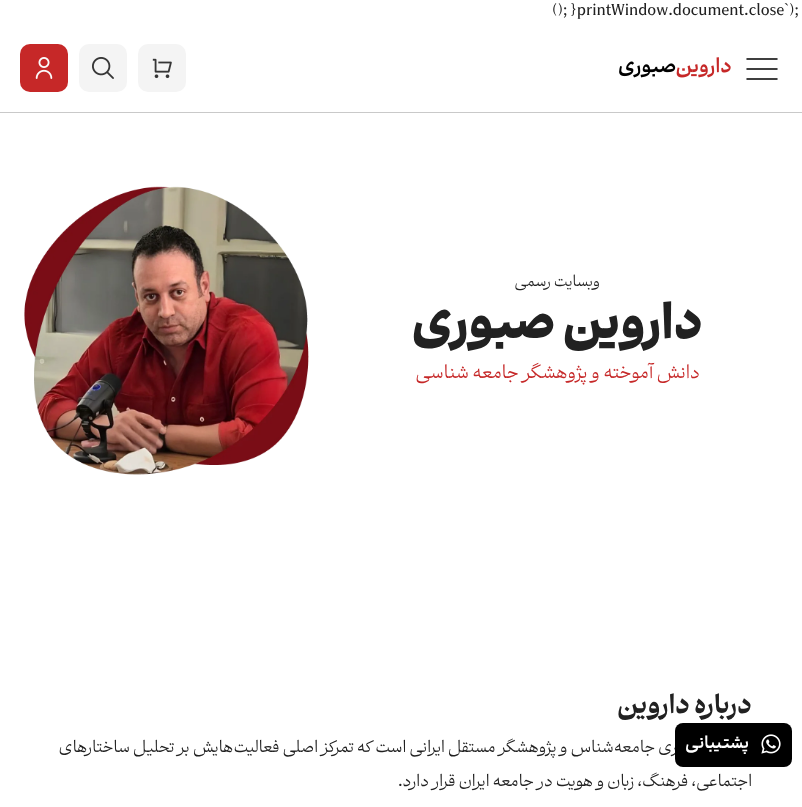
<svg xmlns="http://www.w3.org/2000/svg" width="802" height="807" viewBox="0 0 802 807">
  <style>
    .t1 { font: 16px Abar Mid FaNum; fill: #212121; }
    .t2 { font: 16px Liberation Sans; fill: #212121; }
    .t3 { font: 15px Abar Mid FaNum; direction: rtl; fill: #212121; }
    .t4 { font: 900 46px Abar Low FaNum; direction: rtl; fill: #212121; }
    .t5 { font: 18px Abar Mid FaNum; direction: rtl; fill: #c62828; }
    .t6 { font: 800 25px Abar Mid FaNum; direction: rtl; fill: #212121; }
    .t7 { font: 16px Abar Mid FaNum; direction: rtl; fill: #212121; }
    .t8 { font: bold 16px Abar Low FaNum; direction: rtl; fill: #fff; }
  </style>
  <rect width="100%" height="100%" fill="#fff"/>
  <text x="789" y="15" class="t1">);</text>
  <text x="784" y="15" class="t2">`</text>
  <text x="552" y="15" class="t1">(); }printWindow.document.close</text>
  <rect x="0" y="112" width="802" height="1" fill="#c9c9c9"/>
  <path d="M747 59H777M747 69H777M747 79H777" fill="none" stroke="#000" stroke-width="1.5" stroke-linecap="round"/>
  <image x="619" y="57" width="112" height="21" href="images/1.png"/>
  <rect x="138" y="44" width="48" height="48" rx="10" fill="#f4f4f4"/>
  <image x="152" y="58" width="20" height="21" href="images/2.png"/>
  <rect x="79" y="44" width="48" height="48" rx="10" fill="#f4f4f4"/>
  <image x="92" y="57" width="22" height="22" href="images/3.png"/>
  <rect x="20" y="44" width="48" height="48" rx="10" fill="#c62828"/>
  <image x="35" y="57" width="18" height="22" href="images/4.png"/>
  <text x="600" y="286" class="t3">وبسایت رسمی</text>
  <text x="703" y="338" class="t4">داروین صبوری</text>
  <text x="700" y="378" class="t5">دانش آموخته و پژوهشگر جامعه شناسی</text>
  <image x="24" y="186" width="285" height="289" href="images/5.png"/>
  <text x="752" y="713" class="t6">درباره داروین</text>
  <text x="752" y="752" class="t7">داروین صبوری جامعه‌شناس و پژوهشگر مستقل ایرانی است که تمرکز اصلی فعالیت‌هایش بر تحلیل ساختارهای</text>
  <text x="752" y="786" class="t7">اجتماعی، فرهنگ، زبان و هویت در جامعه ایران قرار دارد.</text>
  <rect x="675" y="723" width="117" height="44" rx="8" fill="#000"/>
  <image x="761" y="734" width="20" height="20" href="images/6.png"/>
  <text x="749" y="748" class="t8">پشتیبانی</text>
</svg>
